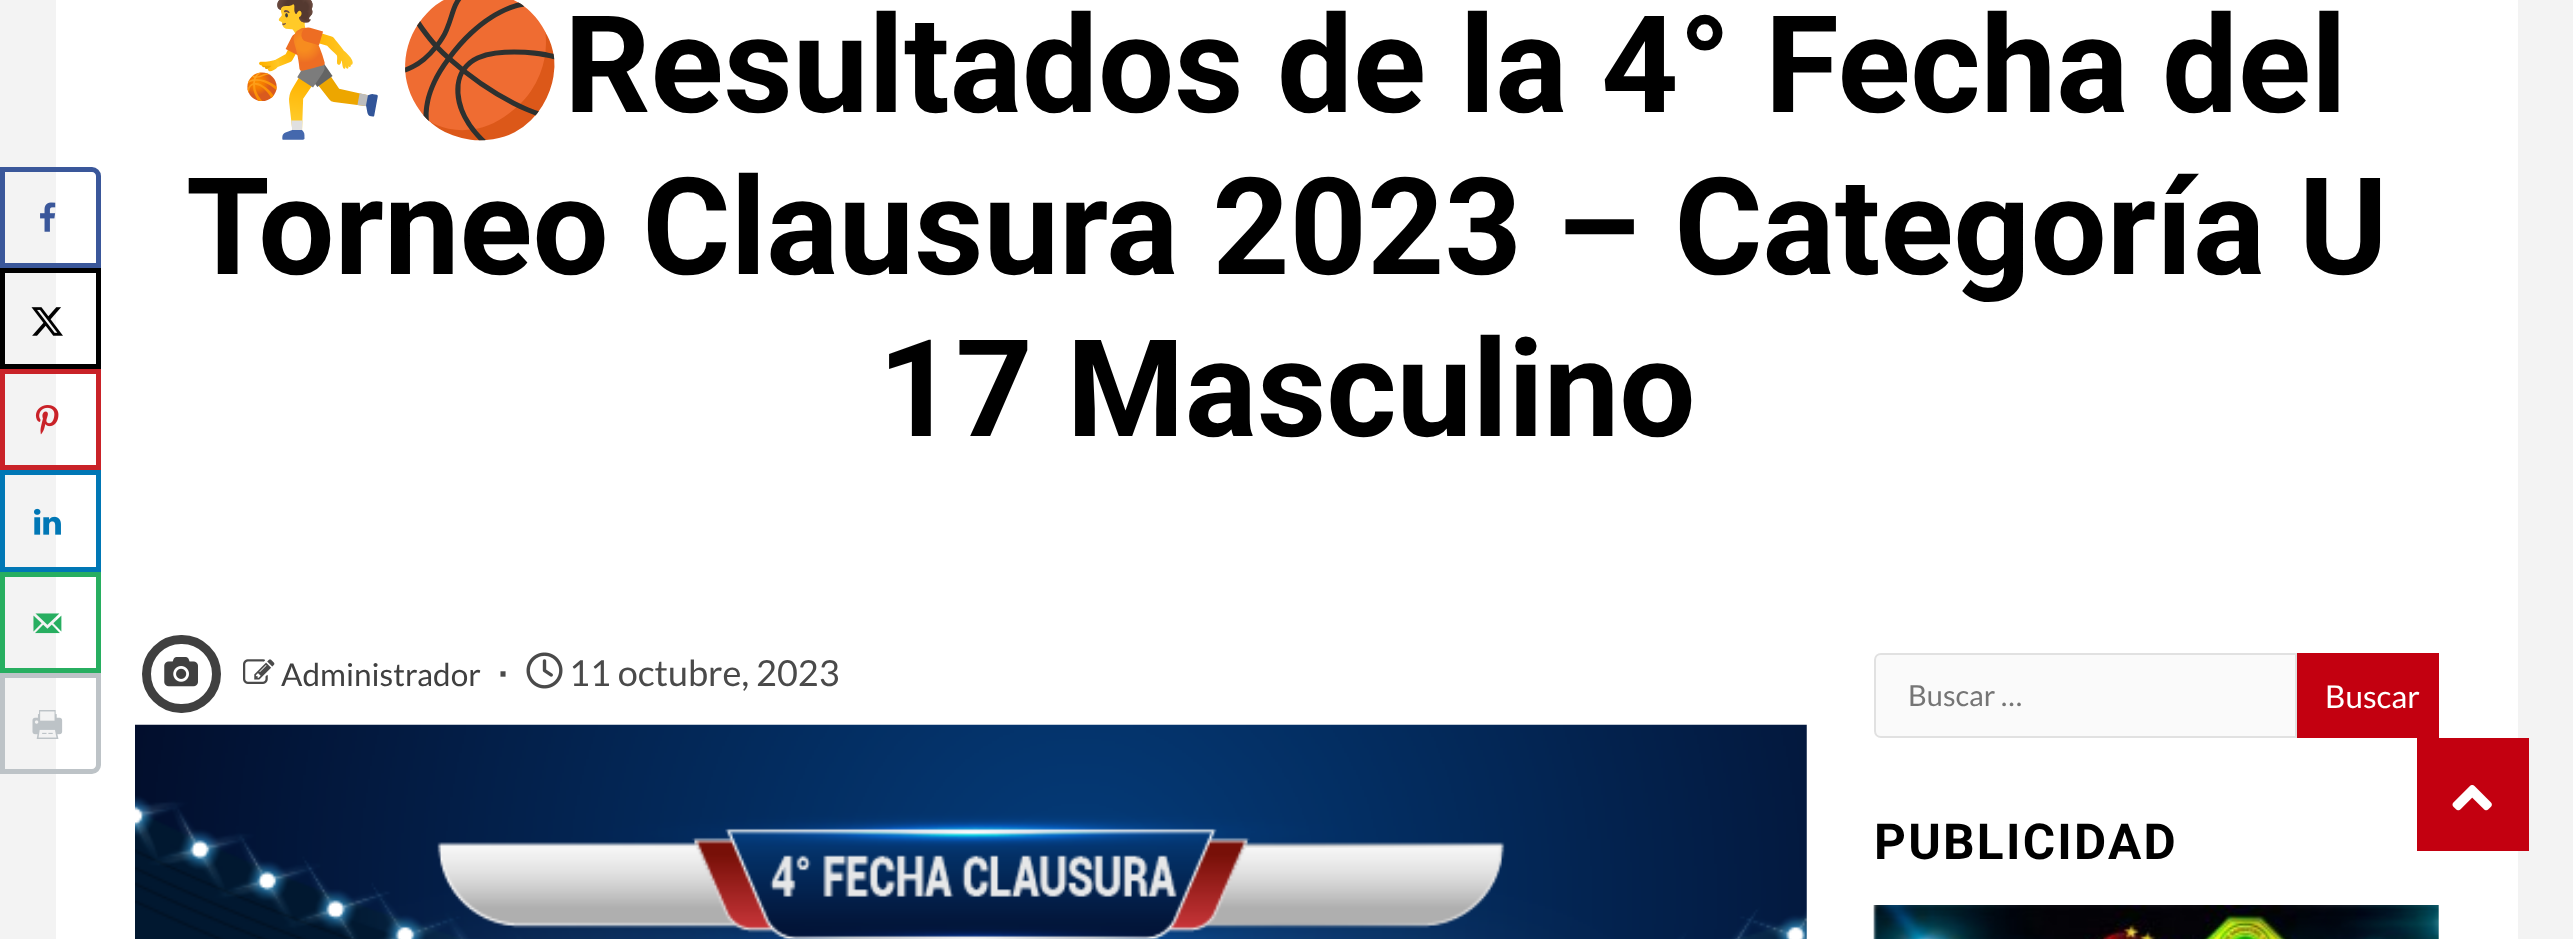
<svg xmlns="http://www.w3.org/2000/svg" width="2573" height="939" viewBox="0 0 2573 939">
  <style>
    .t1 { font: bold 135px Noto Color Emoji; fill: #000; }
    .t2 { font: bold 135px Roboto; fill: #000; }
    .t3 { font: 31.5px Lato; fill: #404040; }
    .t4 { font: bold 36px Liberation Sans; fill: #4a4a4a; }
    .t5 { font: 36px Lato; fill: #4a4a4a; }
    .t6 { font: 29px Lato; fill: #757575; }
    .t7 { font: 31.5px Lato; fill: #fff; }
    .t8 { font: bold 49.5px Roboto; letter-spacing: 2.25px; fill: #000; }
  </style>
  <rect width="100%" height="100%" fill="#f3f3f3"/>
  <rect x="56" y="0" width="2462" height="939" fill="#fff"/>
  <path d="M2.5 169.5H92C95.5 169.5 98.5 172.5 98.5 176V265.5H2.5Z" fill="none" stroke="#3a579a" stroke-width="5"/>
  <image x="40" y="202" width="16" height="30" href="images/1.png"/>
  <rect x="2.5" y="270.5" width="96" height="96" fill="none" stroke="#000" stroke-width="5"/>
  <image x="31" y="307" width="32" height="29" href="images/2.png"/>
  <rect x="2.5" y="371.5" width="96" height="96" fill="none" stroke="#c92228" stroke-width="5"/>
  <image x="35" y="405" width="24" height="30" href="images/3.png"/>
  <rect x="2.5" y="472.5" width="96" height="97" fill="none" stroke="#0077b5" stroke-width="5"/>
  <image x="34" y="508" width="27" height="27" href="images/4.png"/>
  <rect x="2.5" y="574.5" width="96" height="96" fill="none" stroke="#27ae60" stroke-width="5"/>
  <image x="33" y="613" width="29" height="21" href="images/5.png"/>
  <path d="M2.5 675.5H98.5V765C98.5 768.5 95.5 771.5 92 771.5H2.5Z" fill="none" stroke="#bdc3c7" stroke-width="5"/>
  <image x="32" y="710" width="31" height="29" href="images/6.png"/>
  <text x="228" y="112" class="t1">⛹🏀</text>
  <text x="564" y="112" class="t2">Resultados de la 4° Fecha del</text>
  <text x="186" y="274" class="t2">Torneo Clausura 2023 – Categoría U</text>
  <text x="878" y="436" class="t2">17 Masculino</text>
  <image x="164" y="657" width="34" height="30" href="images/7.png"/>
  <rect x="146.5" y="639.5" width="70" height="69" rx="34.5" fill="none" stroke="#404040" stroke-width="9"/>
  <image x="243" y="659" width="32" height="25" href="images/8.png"/>
  <text x="281" y="686" class="t3">Administrador</text>
  <text x="498" y="686" class="t4">∙</text>
  <image x="526" y="652" width="37" height="37" href="images/9.png"/>
  <text x="569" y="686" class="t5">11 octubre, 2023</text>
  <image x="135" y="724" width="1672" height="215" href="images/10.png"/>
  <path d="M1881 654H2296V737H1881C1877.5 737 1875 734.5 1875 731V660C1875 656.5 1877.5 654 1881 654Z" fill="#fafafa" stroke="#e1e1e1" stroke-width="2"/>
  <text x="1908" y="706" class="t6">Buscar …</text>
  <rect x="2297" y="653" width="142" height="85" fill="#c30010"/>
  <text x="2325" y="708" class="t7">Buscar</text>
  <text x="1874" y="859" class="t8">PUBLICIDAD</text>
  <image x="1873" y="905" width="566" height="34" href="images/11.png"/>
  <rect x="2417" y="738" width="112" height="113" fill="#c30010"/>
  <image x="2452" y="785" width="40" height="26" href="images/12.png"/>
</svg>
